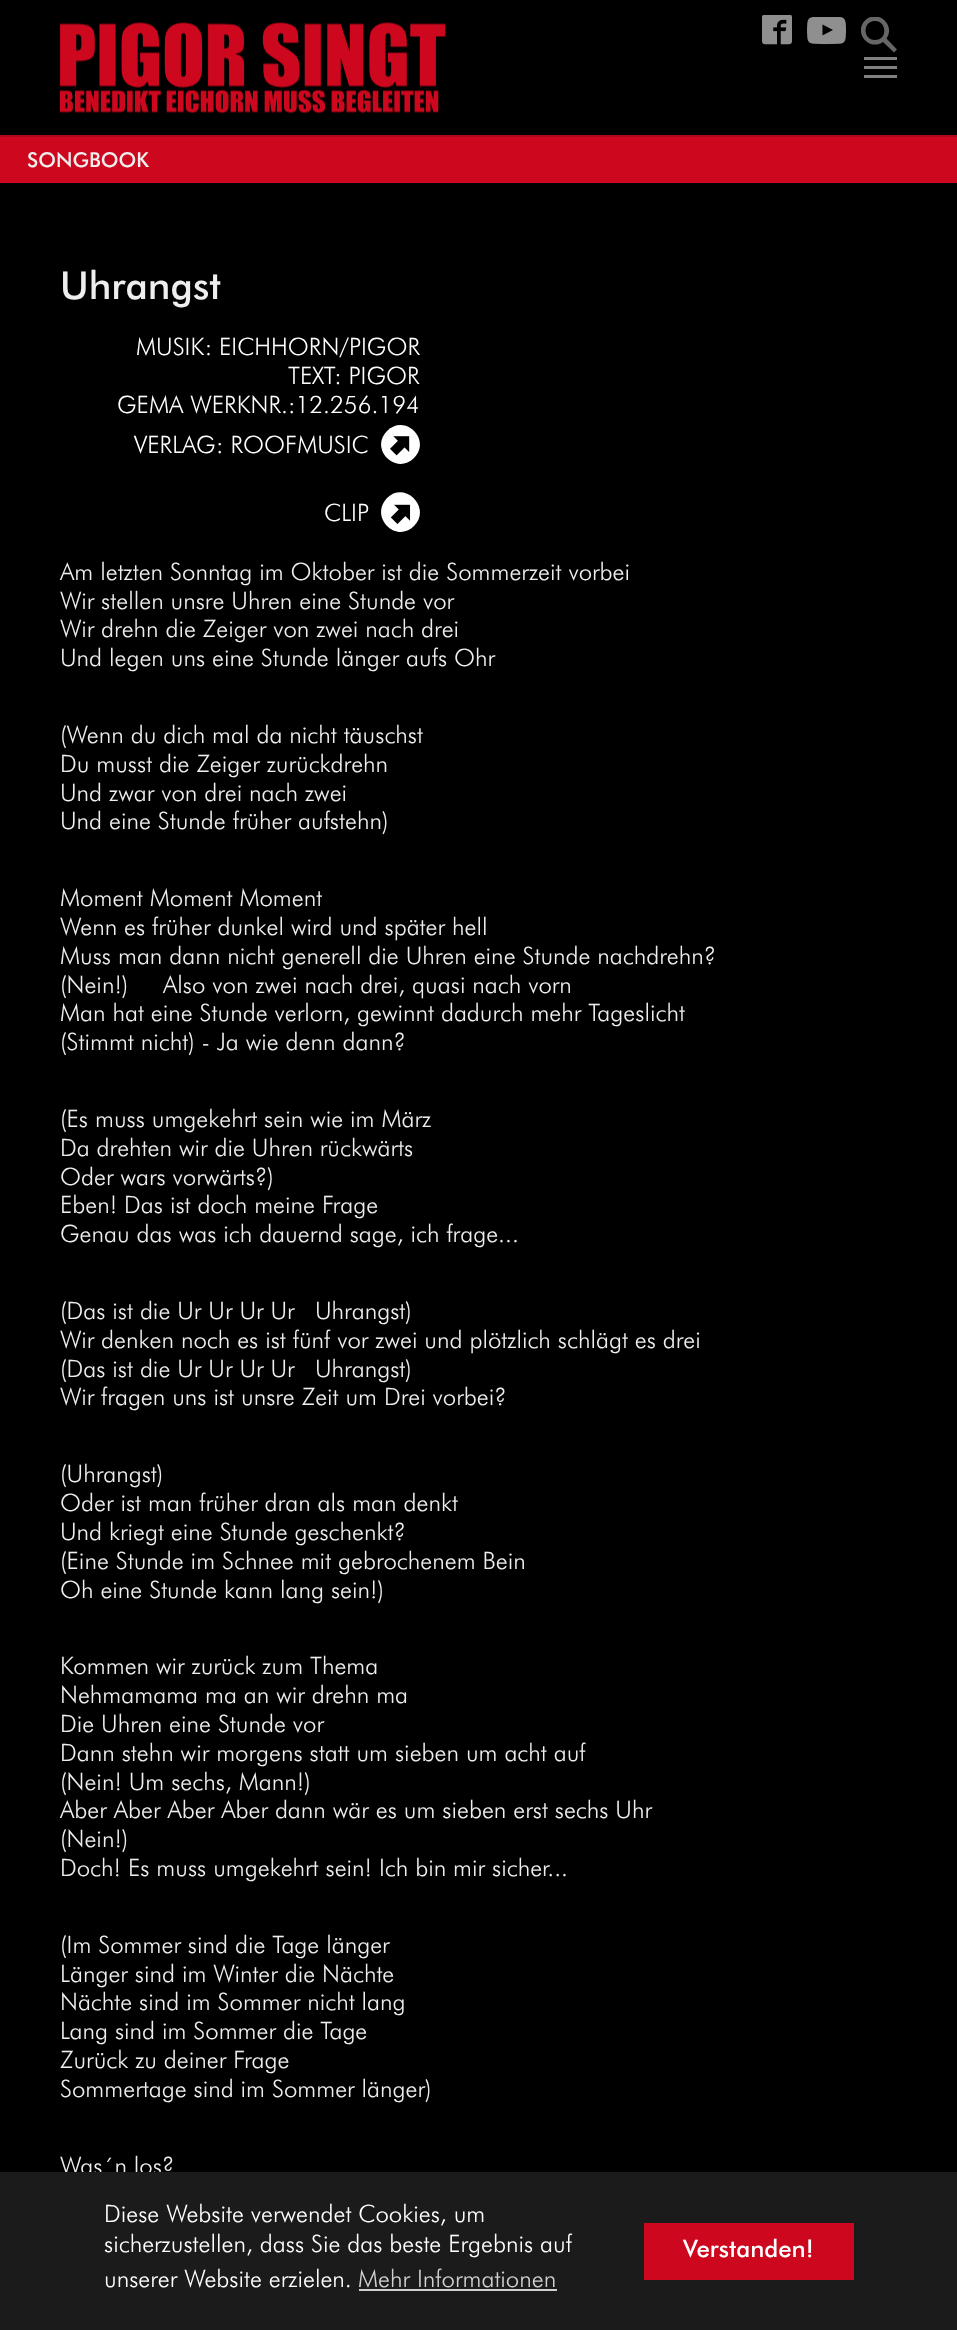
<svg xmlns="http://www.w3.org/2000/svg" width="957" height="2330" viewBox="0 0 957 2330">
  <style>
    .t1 { font: 500 20.5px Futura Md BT; fill: #eee; }
    .t2 { font: 500 38.5px Futura Md BT; fill: #eee; }
    .t3 { font: 300 24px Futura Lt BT; fill: #fff; }
    .t4 { font: 300 24px Futura Lt BT; fill: #eee; }
    .t5 { font: 300 24px Futura Lt BT; fill: #d1d1d1; }
    .t6 { font: 500 24px Futura Md BT; fill: #fff; }
  </style>
  <defs>
    <clipPath id="clip1"><rect x="861" y="17" width="36" height="36"/></clipPath>
  </defs>
  <rect width="100%" height="100%" fill="#000"/>
  <rect x="0" y="135" width="957" height="2" fill="#ae061a"/>
  <image x="60" y="22" width="386" height="91" href="images/1.png"/>
  <image x="762" y="15" width="30" height="30" href="images/2.png"/>
  <image x="807" y="17" width="39" height="28" href="images/3.png"/>
  <g clip-path="url(#clip1)">
    <path d="M897 49.5L886.5 38.5C896 25 877.5 8.5 865 20.5C853 33 869.5 51.5 883 42L894 52.5ZM875 40C862.5 40 862.5 21.5 874.5 21C887 20.5 888 40 875 40Z" fill="#666"/>
  </g>
  <rect x="864" y="66" width="33" height="3" fill="#808080"/>
  <rect x="864" y="57" width="33" height="3" fill="#808080"/>
  <rect x="864" y="75" width="33" height="3" fill="#808080"/>
  <rect x="0" y="137" width="957" height="46" fill="#cd071e"/>
  <text x="27" y="167" class="t1">SONGBOOK</text>
  <text x="60" y="299" class="t2">Uhrangst</text>
  <text x="136" y="355" class="t3">MUSIK: EICHHORN/PIGOR</text>
  <text x="288" y="384" class="t3">TEXT: PIGOR</text>
  <text x="117" y="413" class="t3">GEMA WERKNR.:12.256.194</text>
  <text x="134" y="453" class="t3">VERLAG: ROOFMUSIC</text>
  <path d="M387 431C405 413 432 440 414 458C396 476 369 449 387 431Z" fill="#fff"/>
  <image x="390" y="436" width="20" height="20" href="images/4.png"/>
  <text x="324" y="521" class="t3">CLIP</text>
  <path d="M387 498C405 480 432 508 414 526C396 544 369 517 387 498Z" fill="#fff"/>
  <image x="390" y="504" width="21" height="20" href="images/5.png"/>
  <text x="60" y="580" class="t4">Am letzten Sonntag im Oktober ist die Sommerzeit vorbei</text>
  <text x="60" y="609" class="t4">Wir stellen unsre Uhren eine Stunde vor</text>
  <text x="60" y="637" class="t4">Wir drehn die Zeiger von zwei nach drei</text>
  <text x="60" y="666" class="t4">Und legen uns eine Stunde länger aufs Ohr</text>
  <text x="60" y="743" class="t4">(Wenn du dich mal da nicht täuschst</text>
  <text x="60" y="772" class="t4">Du musst die Zeiger zurückdrehn</text>
  <text x="60" y="801" class="t4">Und zwar von drei nach zwei</text>
  <text x="60" y="829" class="t4">Und eine Stunde früher aufstehn)</text>
  <text x="60" y="906" class="t4">Moment Moment Moment</text>
  <text x="60" y="935" class="t4">Wenn es früher dunkel wird und später hell</text>
  <text x="60" y="964" class="t4">Muss man dann nicht generell die Uhren eine Stunde nachdrehn?</text>
  <text x="60" y="993" class="t4">(Nein!)</text>
  <text x="163" y="993" class="t4">Also von zwei nach drei, quasi nach vorn</text>
  <text x="60" y="1021" class="t4">Man hat eine Stunde verlorn, gewinnt dadurch mehr Tageslicht</text>
  <text x="60" y="1050" class="t4">(Stimmt nicht) - Ja wie denn dann?</text>
  <text x="60" y="1127" class="t4">(Es muss umgekehrt sein wie im März</text>
  <text x="60" y="1156" class="t4">Da drehten wir die Uhren rückwärts</text>
  <text x="60" y="1185" class="t4">Oder wars vorwärts?)</text>
  <text x="60" y="1213" class="t4">Eben! Das ist doch meine Frage</text>
  <text x="60" y="1242" class="t4">Genau das was ich dauernd sage, ich frage...</text>
  <text x="60" y="1319" class="t4">(Das ist die Ur Ur Ur Ur</text>
  <text x="315" y="1319" class="t4">Uhrangst)</text>
  <text x="60" y="1348" class="t4">Wir denken noch es ist fünf vor zwei und plötzlich schlägt es drei</text>
  <text x="60" y="1377" class="t4">(Das ist die Ur Ur Ur Ur</text>
  <text x="315" y="1377" class="t4">Uhrangst)</text>
  <text x="60" y="1405" class="t4">Wir fragen uns ist unsre Zeit um Drei vorbei?</text>
  <text x="60" y="1482" class="t4">(Uhrangst)</text>
  <text x="60" y="1511" class="t4">Oder ist man früher dran als man denkt</text>
  <text x="60" y="1540" class="t4">Und kriegt eine Stunde geschenkt?</text>
  <text x="60" y="1569" class="t4">(Eine Stunde im Schnee mit gebrochenem Bein</text>
  <text x="60" y="1598" class="t4">Oh eine Stunde kann lang sein!)</text>
  <text x="60" y="1674" class="t4">Kommen wir zurück zum Thema</text>
  <text x="60" y="1703" class="t4">Nehmamama ma an wir drehn ma</text>
  <text x="60" y="1732" class="t4">Die Uhren eine Stunde vor</text>
  <text x="60" y="1761" class="t4">Dann stehn wir morgens statt um sieben um acht auf</text>
  <text x="60" y="1790" class="t4">(Nein! Um sechs, Mann!)</text>
  <text x="60" y="1818" class="t4">Aber Aber Aber Aber dann wär es um sieben erst sechs Uhr</text>
  <text x="60" y="1847" class="t4">(Nein!)</text>
  <text x="60" y="1876" class="t4">Doch! Es muss umgekehrt sein! Ich bin mir sicher...</text>
  <text x="60" y="1953" class="t4">(Im Sommer sind die Tage länger</text>
  <text x="60" y="1982" class="t4">Länger sind im Winter die Nächte</text>
  <text x="60" y="2010" class="t4">Nächte sind im Sommer nicht lang</text>
  <text x="60" y="2039" class="t4">Lang sind im Sommer die Tage</text>
  <text x="60" y="2068" class="t4">Zurück zu deiner Frage</text>
  <text x="60" y="2097" class="t4">Sommertage sind im Sommer länger)</text>
  <text x="60" y="2174" class="t4">Was´n los?</text>
  <rect x="0" y="2172" width="957" height="158" fill="#1b1b1b"/>
  <text x="104" y="2222" class="t3">Diese Website verwendet Cookies, um</text>
  <text x="104" y="2252" class="t3">sicherzustellen, dass Sie das beste Ergebnis auf</text>
  <text x="104" y="2287" class="t3">unserer Website erzielen.</text>
  <text x="358" y="2287" class="t5">Mehr Informationen</text>
  <rect x="359" y="2289" width="198" height="2" fill="#d1d1d1"/>
  <rect x="644" y="2223" width="210" height="57" fill="#cd071e"/>
  <text x="683" y="2257" class="t6">Verstanden!</text>
</svg>
